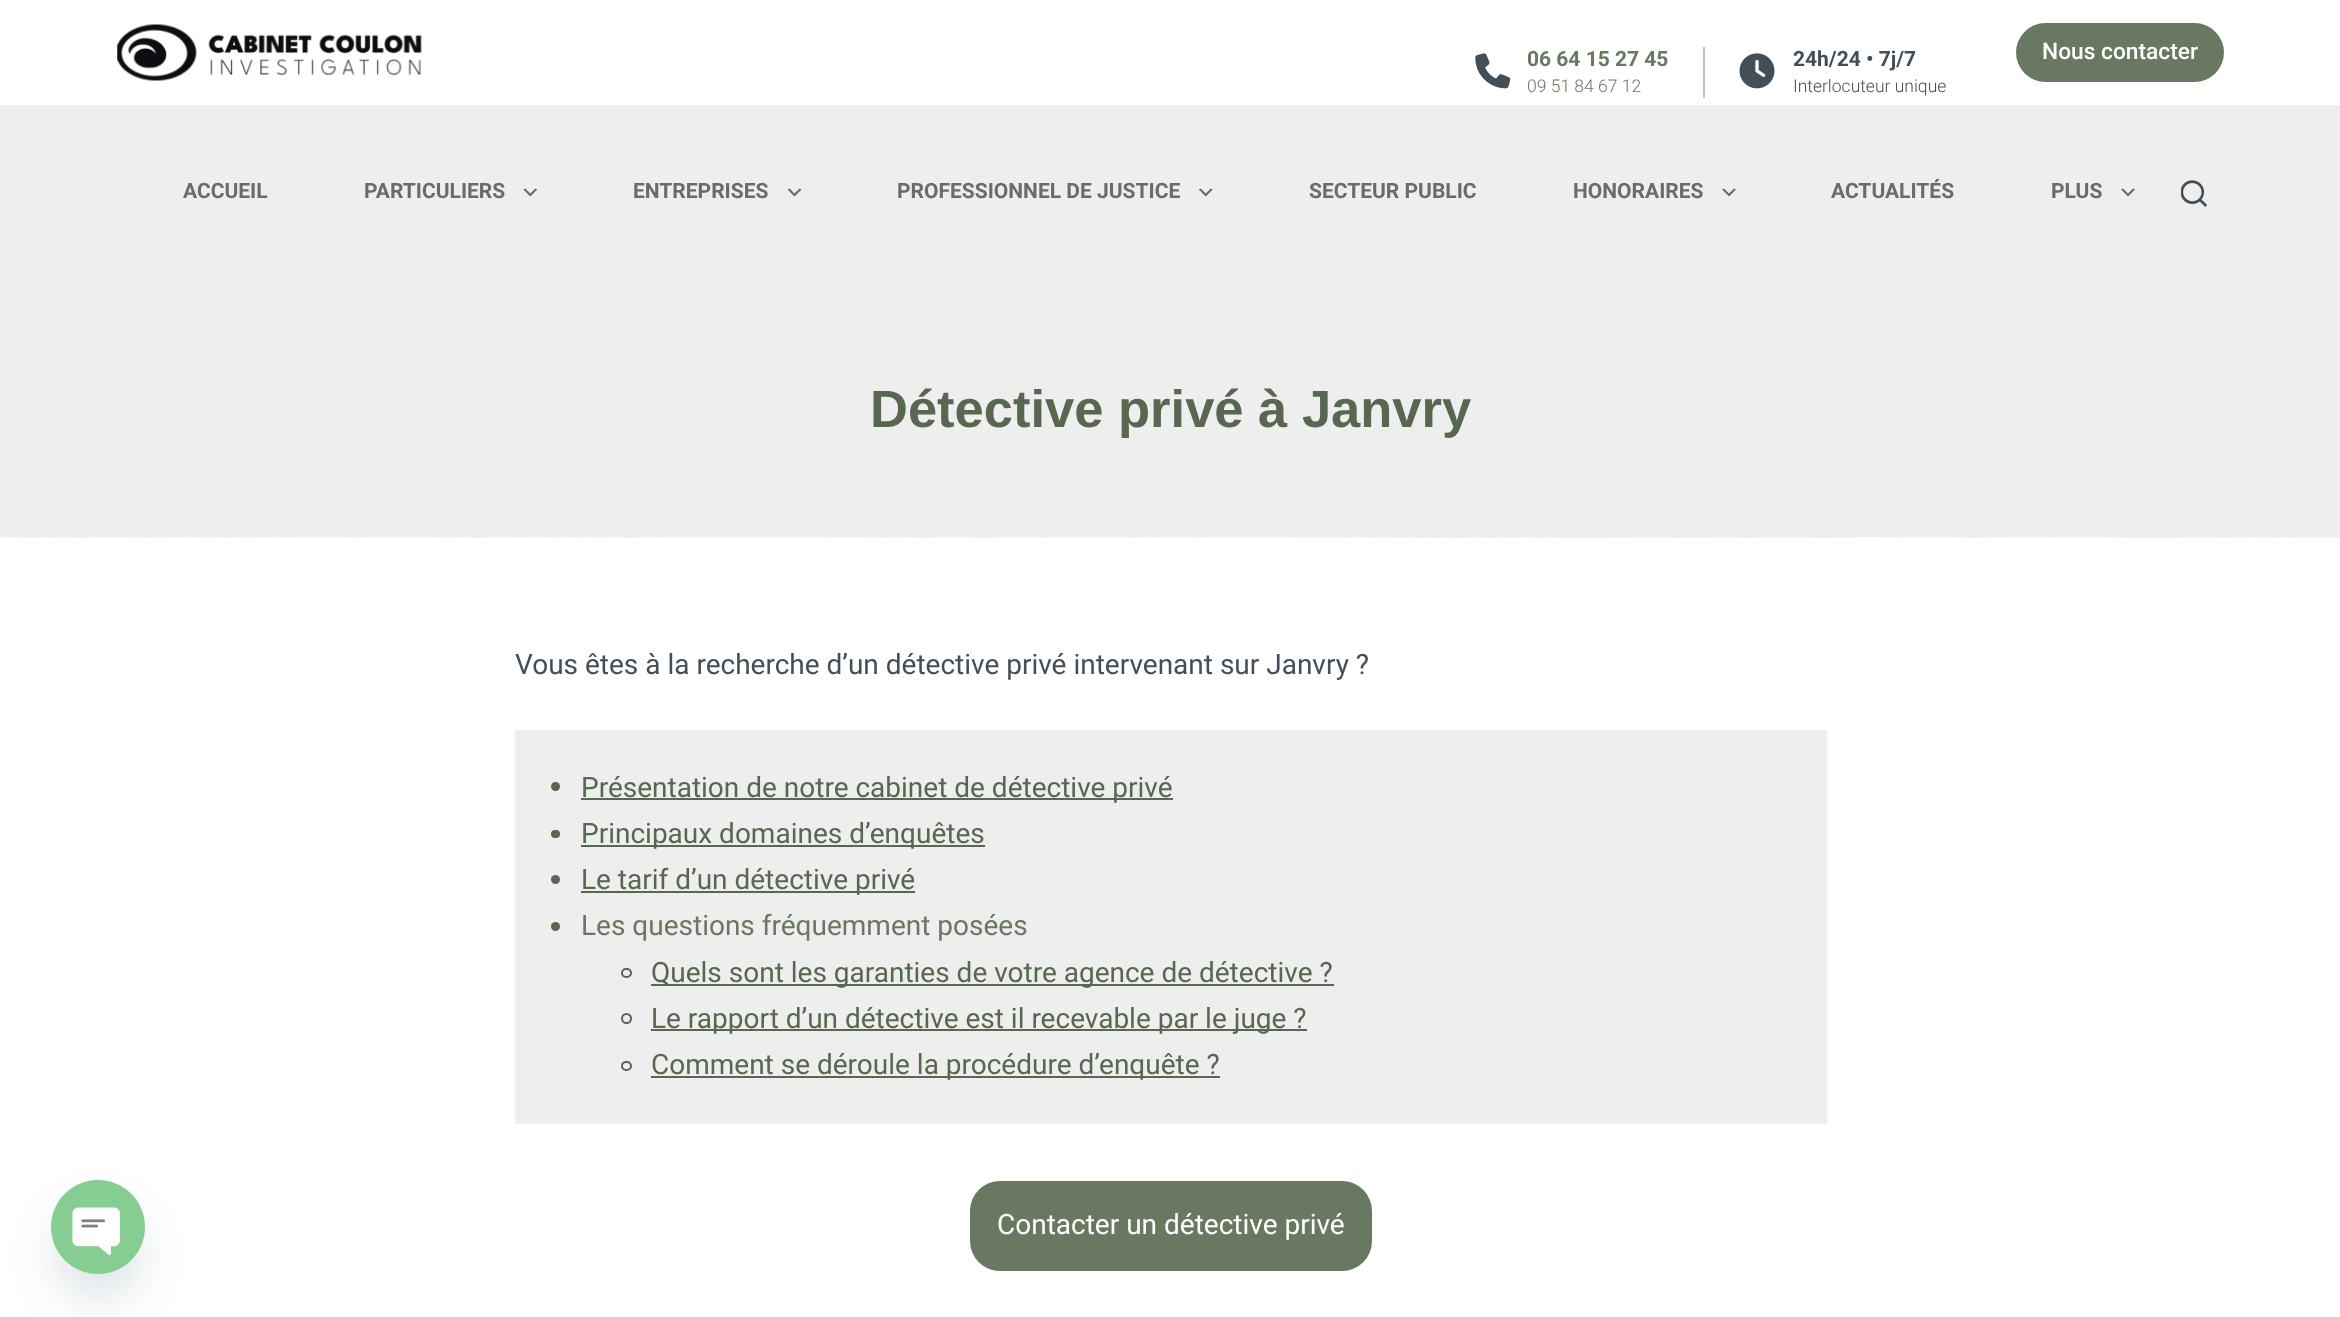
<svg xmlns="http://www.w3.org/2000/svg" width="2340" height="1317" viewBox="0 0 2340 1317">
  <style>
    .t1 { font: bold 21px Roboto; fill: #697861; }
    .t2 { font: 300 17.5px Roboto; fill: #697861; }
    .t3 { font: bold 21px Roboto; fill: #434f58; }
    .t4 { font: 300 17.5px Roboto; fill: #434f58; }
    .t5 { font: 500 22.75px Roboto; fill: #fff; }
    .t6 { font: bold 21px Roboto; fill: #6b6b6b; }
    .t7 { font: bold 52.5px Liberation Sans; fill: #586750; }
    .t8 { font: 28px Roboto; fill: #434f58; }
    .t9 { font: 28px Roboto; fill: #586750; }
    .t10 { font: 28px Roboto; fill: #697861; }
    .t11 { font: 28px Roboto; fill: #fff; }
  </style>
  <rect width="100%" height="100%" fill="#fff"/>
  <rect x="51" y="1208" width="94" height="94" rx="47" fill="#49687e29" filter="blur(21px)"/>
  <image x="51" y="1180" width="94" height="94" href="images/1.png"/>
  <image x="117" y="24" width="305" height="57" href="images/2.png"/>
  <rect x="1703" y="47" width="2" height="51" fill="#c2c2c2"/>
  <image x="1475" y="53" width="36" height="36" href="images/3.png"/>
  <text x="1527" y="66" class="t1">06 64 15 27 45</text>
  <text x="1527" y="92" class="t2">09 51 84 67 12</text>
  <image x="1739" y="53" width="36" height="36" href="images/4.png"/>
  <text x="1793" y="66" class="t3">24h/24 • 7j/7</text>
  <text x="1793" y="92" class="t4">Interlocuteur unique</text>
  <rect x="2016" y="23" width="208" height="59" rx="29.5" fill="#697861"/>
  <text x="2042" y="59" class="t5">Nous contacter</text>
  <rect x="0" y="105" width="2340" height="432" fill="#eee"/>
  <text x="183" y="198" class="t6">ACCUEIL</text>
  <text x="364" y="198" class="t6">PARTICULIERS</text>
  <image x="523" y="188" width="14" height="9" href="images/5.png"/>
  <text x="633" y="198" class="t6">ENTREPRISES</text>
  <image x="788" y="188" width="14" height="9" href="images/6.png"/>
  <text x="897" y="198" class="t6">PROFESSIONNEL DE JUSTICE</text>
  <image x="1199" y="188" width="14" height="9" href="images/7.png"/>
  <text x="1309" y="198" class="t6">SECTEUR PUBLIC</text>
  <text x="1573" y="198" class="t6">HONORAIRES</text>
  <image x="1722" y="188" width="14" height="9" href="images/8.png"/>
  <text x="1831" y="198" class="t6">ACTUALITÉS</text>
  <text x="2051" y="198" class="t6">PLUS</text>
  <image x="2121" y="188" width="14" height="9" href="images/8.png"/>
  <image x="2181" y="180" width="26" height="27" href="images/9.png"/>
  <image x="0" y="537" width="2340" height="1" href="images/10.png"/>
  <text x="870" y="427" class="t7">Détective privé à Janvry</text>
  <text x="515" y="674" class="t8">Vous êtes à la recherche d’un détective privé intervenant sur Janvry ?</text>
  <rect x="515" y="730" width="1312" height="394" fill="#eee"/>
  <circle cx="555.5" cy="786.5" r="4.5" fill="#586750"/>
  <rect x="581" y="798" width="592" height="2" fill="#586750"/>
  <text x="581" y="797" class="t9">Présentation de notre cabinet de détective privé</text>
  <rect x="551" y="830" width="9" height="8" rx="4" fill="#586750"/>
  <rect x="581" y="845" width="404" height="2" fill="#586750"/>
  <text x="581" y="843" class="t9">Principaux domaines d’enquêtes</text>
  <circle cx="555.5" cy="879.5" r="4.5" fill="#586750"/>
  <rect x="581" y="891" width="334" height="2" fill="#586750"/>
  <text x="581" y="889" class="t9">Le tarif d’un détective privé</text>
  <circle cx="555.5" cy="926.5" r="4.5" fill="#586750"/>
  <text x="581" y="935" class="t10">Les questions fréquemment posées</text>
  <rect x="622" y="969" width="9" height="8" rx="4" fill="none" stroke="#586750" stroke-width="2"/>
  <rect x="651" y="984" width="683" height="2" fill="#586750"/>
  <text x="651" y="982" class="t9">Quels sont les garanties de votre agence de détective ?</text>
  <circle cx="626.5" cy="1018.5" r="4.5" fill="none" stroke="#586750" stroke-width="2"/>
  <rect x="651" y="1029" width="656" height="2" fill="#586750"/>
  <text x="651" y="1028" class="t9">Le rapport d’un détective est il recevable par le juge ?</text>
  <rect x="622" y="1062" width="9" height="8" rx="4" fill="none" stroke="#586750" stroke-width="2"/>
  <rect x="651" y="1076" width="569" height="2" fill="#586750"/>
  <text x="651" y="1074" class="t9">Comment se déroule la procédure d’enquête ?</text>
  <rect x="970" y="1181" width="402" height="90" rx="30" fill="#697861"/>
  <text x="997" y="1234" class="t11">Contacter un détective privé</text>
</svg>
